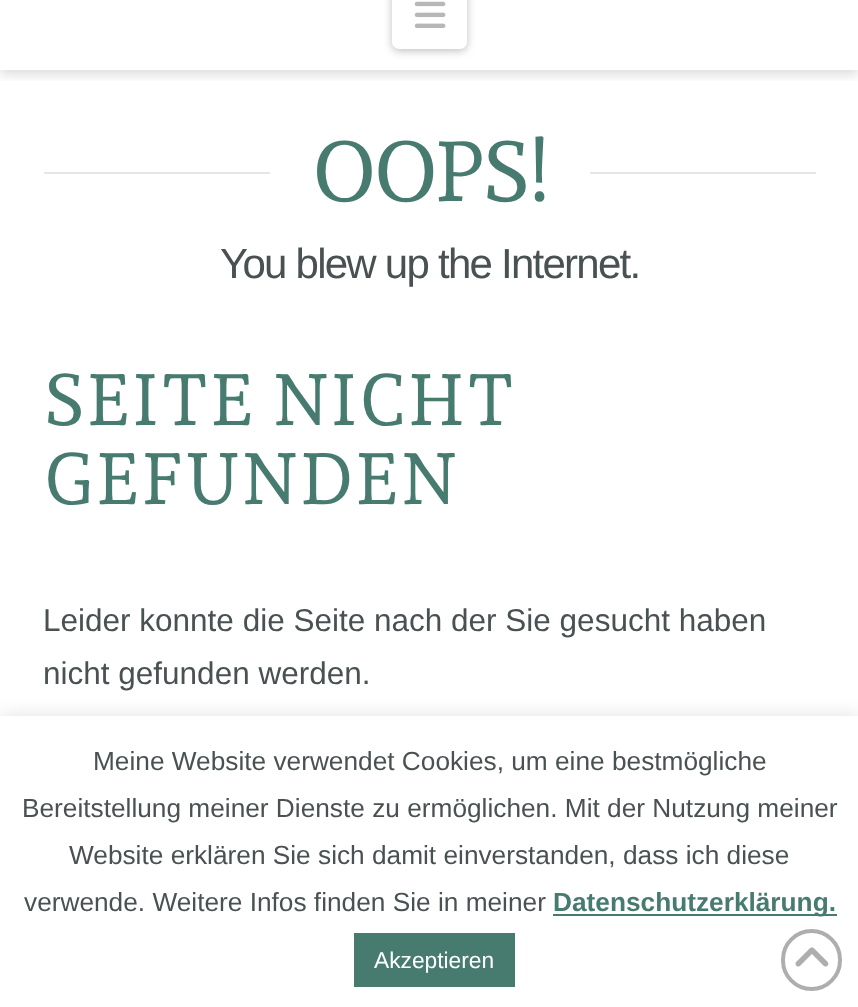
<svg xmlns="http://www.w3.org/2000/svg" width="858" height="1007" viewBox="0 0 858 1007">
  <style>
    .t1 { font: 84px Andada Pro; letter-spacing: -5.25px; fill: #487b6f; }
    .t2 { font: 42px Liberation Sans; letter-spacing: -1.75px; fill: #495153; }
    .t3 { font: 72px Andada Pro; letter-spacing: 0.4px; fill: #487b6f; }
    .t4 { font: 31.5px Liberation Sans; fill: #495153; }
    .t5 { font: 26.25px Liberation Sans; fill: #495153; }
    .t6 { font: bold 26.25px Liberation Sans; fill: #487b6f; }
    .t7 { font: 22.75px Liberation Sans; fill: #fff; }
  </style>
  <defs>
    <clipPath id="clip1"><rect x="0" y="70" width="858" height="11"/></clipPath>
  </defs>
  <rect width="100%" height="100%" fill="#fff"/>
  <g clip-path="url(#clip1)">
    <rect x="0" y="-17" width="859" height="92" fill="#00000021" filter="blur(5.5px)"/>
  </g>
  <rect x="392" y="-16" width="75" height="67" rx="7" fill="#00000040" filter="blur(4.5px)"/>
  <rect x="392" y="-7" width="75" height="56" rx="7" fill="#fff"/>
  <image x="414" y="1" width="32" height="27" href="images/1.png"/>
  <rect x="44" y="172" width="226" height="2" fill="#e6e6e6"/>
  <text x="311" y="201" class="t1">OOPS!</text>
  <rect x="590" y="172" width="226" height="2" fill="#e6e6e6"/>
  <text x="220" y="278" class="t2">You blew up the Internet.</text>
  <text x="43" y="425" class="t3">SEITE NICHT</text>
  <text x="43" y="504" class="t3">GEFUNDEN</text>
  <text x="43" y="631" class="t4">Leider konnte die Seite nach der Sie gesucht haben</text>
  <text x="43" y="684" class="t4">nicht gefunden werden.</text>
  <rect x="0" y="714" width="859" height="292" fill="#acabab4d" filter="blur(9px)"/>
  <rect x="0" y="716" width="858" height="291" fill="#fff"/>
  <rect x="783" y="931" width="57" height="58" rx="28.5" fill="none" stroke="#aeaeae" stroke-width="4"/>
  <image x="795" y="947" width="34" height="20" href="images/2.png"/>
  <text x="93" y="770" class="t5">Meine Website verwendet Cookies, um eine bestmögliche</text>
  <text x="22" y="817" class="t5">Bereitstellung meiner Dienste zu ermöglichen. Mit der Nutzung meiner</text>
  <text x="69" y="864" class="t5">Website erklären Sie sich damit einverstanden, dass ich diese</text>
  <text x="24" y="911" class="t5">verwende. Weitere Infos finden Sie in meiner</text>
  <rect x="553" y="914" width="284" height="2" fill="#487b6f"/>
  <text x="553" y="911" class="t6">Datenschutzerklärung.</text>
  <rect x="354" y="933" width="161" height="54" fill="#487b6f"/>
  <text x="374" y="968" class="t7">Akzeptieren</text>
</svg>
